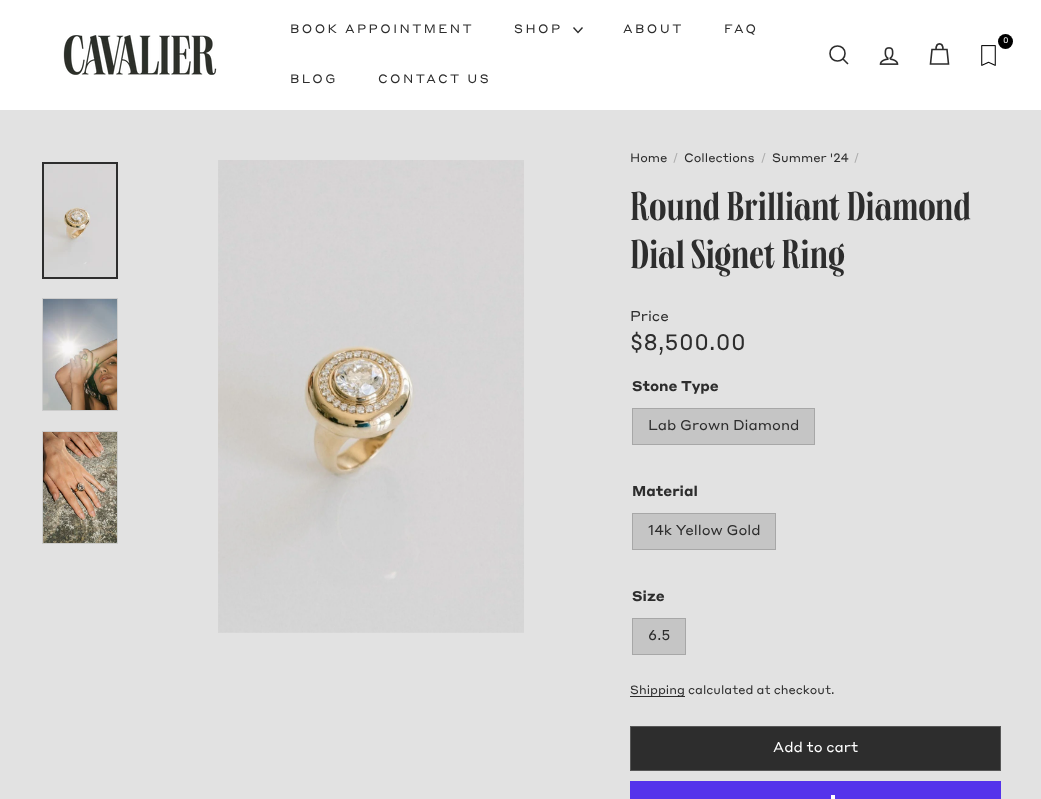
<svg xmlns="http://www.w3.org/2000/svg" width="1041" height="799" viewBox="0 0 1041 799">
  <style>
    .t1 { font: 12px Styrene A; letter-spacing: 2.4px; fill: #2d2d2d; }
    .t2 { font: 8px Styrene A; letter-spacing: 2.4px; fill: #fff; }
    .t3 { font: 12px Styrene A; fill: #2d2d2d; }
    .t4 { font: 12px Styrene A; fill: #acacac; }
    .t5 { font: 40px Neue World; fill: #2d2d2d; }
    .t6 { font: 14px Styrene A; fill: #2d2d2d; }
    .t7 { font: 22px Styrene A; fill: #2d2d2d; }
    .t8 { font: bold 14px Styrene A; fill: #2d2d2d; }
    .t9 { font: 11.9px Styrene A; fill: #2d2d2d; }
    .t10 { font: 14px Styrene A; fill: #fff; }
  </style>
  <rect width="100%" height="100%" fill="#e2e2e2"/>
  <rect x="0" y="0" width="1041" height="110" fill="#fff"/>
  <image x="63" y="35" width="154" height="40" href="images/1.png"/>
  <text x="290" y="33" class="t1">BOOK APPOINTMENT</text>
  <text x="514" y="33" class="t1">SHOP</text>
  <path d="M573.5 27.5L578 32.5L582.5 27.5" fill="none" stroke="#2d2d2d" stroke-width="1.4"/>
  <text x="623" y="33" class="t1">ABOUT</text>
  <text x="724" y="33" class="t1">FAQ</text>
  <text x="290" y="83" class="t1">BLOG</text>
  <text x="378" y="83" class="t1">CONTACT US</text>
  <circle cx="1005.5" cy="41.5" r="7.5" fill="#000"/>
  <text x="1003" y="43" class="t2">0</text>
  <image x="981" y="45" width="15" height="21" href="images/2.png"/>
  <path d="M845 53.5C845 63.5 830 63.5 830 53.5C830 43.5 845 43.5 845 53.5M848 64L843 59" fill="none" stroke="#2d2d2d" stroke-width="1.6"/>
  <image x="879" y="47" width="20" height="18" href="images/3.png"/>
  <path d="M936 49.5C936 42 943 42 943 49.5M932 49.5H947L948.5 64H930.5Z" fill="none" stroke="#2d2d2d" stroke-width="1.6"/>
  <image x="44" y="164" width="72" height="113" href="images/4.png"/>
  <rect x="43" y="163" width="74" height="115" fill="none" stroke="#2d2d2d" stroke-width="2"/>
  <rect x="42.5" y="298.5" width="75" height="112" fill="none" stroke="#ccc"/>
  <image x="43" y="299" width="74" height="111" href="images/5.png"/>
  <rect x="42.5" y="431.5" width="75" height="112" fill="none" stroke="#ccc"/>
  <image x="43" y="432" width="74" height="111" href="images/6.png"/>
  <image x="218" y="160" width="306" height="473" href="images/7.png"/>
  <text x="630" y="162" class="t3">Home</text>
  <text x="673" y="162" class="t4">/</text>
  <text x="684" y="162" class="t3">Collections</text>
  <text x="761" y="162" class="t4">/</text>
  <text x="772" y="162" class="t3">Summer '24</text>
  <text x="854" y="162" class="t4">/</text>
  <text x="630" y="220" class="t5">Round Brilliant Diamond</text>
  <text x="630" y="268" class="t5">Dial Signet Ring</text>
  <text x="630" y="321" class="t6">Price</text>
  <text x="630" y="350" class="t7">$8,500.00</text>
  <text x="632" y="391" class="t8">Stone Type</text>
  <rect x="632.5" y="408.5" width="182" height="36" fill="#c5c5c5" stroke="#a7a7a7"/>
  <text x="648" y="430" class="t6">Lab Grown Diamond</text>
  <text x="632" y="496" class="t8">Material</text>
  <rect x="632.5" y="513.5" width="143" height="36" fill="#c5c5c5" stroke="#a7a7a7"/>
  <text x="648" y="535" class="t6">14k Yellow Gold</text>
  <text x="632" y="601" class="t8">Size</text>
  <rect x="632.5" y="618.5" width="53" height="36" fill="#c5c5c5" stroke="#a7a7a7"/>
  <text x="648" y="640" class="t6">6.5</text>
  <rect x="630" y="696" width="55" height="1" fill="#2d2d2d"/>
  <text x="630" y="694" class="t9">Shipping calculated at checkout.</text>
  <rect x="630.5" y="726.5" width="370" height="44" fill="#2d2d2d" stroke="#575757"/>
  <text x="773" y="752" class="t10">Add to cart</text>
  <rect x="630" y="781" width="371" height="18" fill="#5433eb"/>
  <rect x="831" y="795" width="4" height="4" fill="#fff"/>
</svg>
